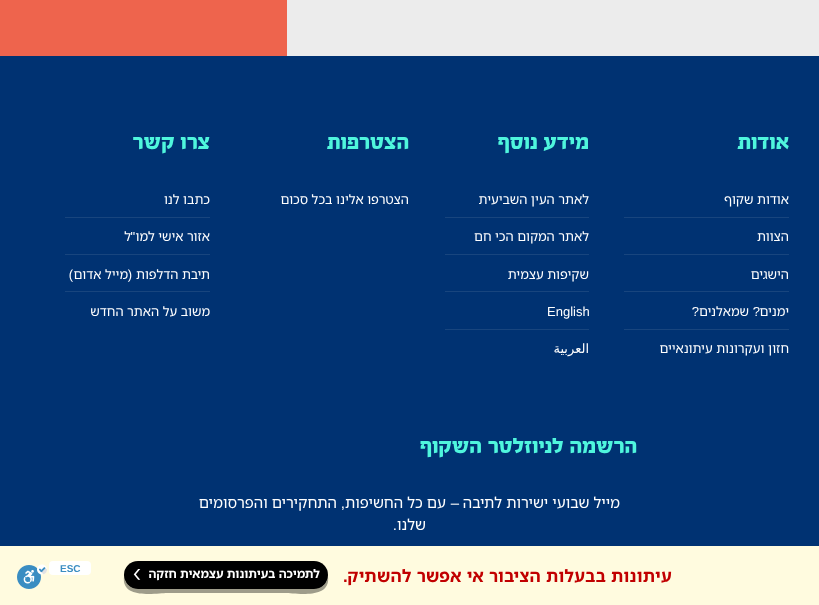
<svg xmlns="http://www.w3.org/2000/svg" width="819" height="605" viewBox="0 0 819 605">
  <style>
    .t1 { font: bold 26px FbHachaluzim; letter-spacing: -0.25px; direction: rtl; fill: #4ff6dd; }
    .t2 { font: 13px Noto Sans Hebrew; direction: rtl; fill: #fff; }
    .t3 { font: 13px Liberation Sans; direction: rtl; fill: #fff; }
    .t4 { font: 13px Liberation Sans; fill: #fff; }
    .t5 { font: 13px DejaVu Sans; direction: rtl; fill: #fff; }
    .t6 { font: 15px Noto Sans Hebrew; direction: rtl; fill: #fff; }
    .t7 { font: 15px Liberation Sans; direction: rtl; fill: #fff; }
    .t8 { font: bold 17px Noto Sans Hebrew; letter-spacing: 0.3px; direction: rtl; fill: #c10000; }
    .t9 { font: bold 17px Liberation Sans; letter-spacing: 0.3px; direction: rtl; fill: #c10000; }
    .t10 { font: bold 12px Noto Sans Hebrew; direction: rtl; fill: #fff; }
    .t11 { font: bold 10px Liberation Sans; fill: #3a8dc2; }
  </style>
  <rect width="100%" height="100%" fill="#003272"/>
  <rect x="287" y="0" width="532" height="56" fill="#ececec"/>
  <rect x="0" y="0" width="287" height="56" fill="#ee644d"/>
  <text x="789" y="149" class="t1">אודות</text>
  <text x="789" y="204" class="t2">אודות שקוף</text>
  <rect x="624" y="217" width="165" height="1" fill="#18457e"/>
  <text x="789" y="241" class="t2">הצוות</text>
  <rect x="624" y="254" width="165" height="1" fill="#18457e"/>
  <text x="789" y="279" class="t2">הישגים</text>
  <rect x="624" y="291" width="165" height="1" fill="#18457e"/>
  <text x="789" y="316" class="t2">ימנים</text>
  <text x="760" y="316" class="t3">?</text>
  <text x="749" y="316" class="t2">שמאלנים</text>
  <text x="699" y="316" class="t3">?</text>
  <rect x="624" y="329" width="165" height="1" fill="#18457e"/>
  <text x="789" y="353" class="t2">חזון ועקרונות עיתונאיים</text>
  <text x="589" y="149" class="t1">מידע נוסף</text>
  <text x="589" y="204" class="t2">לאתר העין השביעית</text>
  <rect x="445" y="217" width="144" height="1" fill="#18457e"/>
  <text x="589" y="241" class="t2">לאתר המקום הכי חם</text>
  <rect x="445" y="254" width="144" height="1" fill="#18457e"/>
  <text x="589" y="279" class="t2">שקיפות עצמית</text>
  <rect x="445" y="291" width="144" height="1" fill="#18457e"/>
  <text x="547" y="316" class="t4">English</text>
  <rect x="445" y="329" width="144" height="1" fill="#18457e"/>
  <text x="589" y="353" class="t5">العربية</text>
  <text x="409" y="149" class="t1">הצטרפות</text>
  <text x="409" y="204" class="t2">הצטרפו אלינו בכל סכום</text>
  <text x="210" y="149" class="t1">צרו קשר</text>
  <text x="210" y="204" class="t2">כתבו לנו</text>
  <rect x="65" y="217" width="145" height="1" fill="#18457e"/>
  <text x="210" y="241" class="t2">אזור אישי למו</text>
  <text x="135" y="241" class="t3">"</text>
  <text x="131" y="241" class="t2">ל</text>
  <rect x="65" y="254" width="145" height="1" fill="#18457e"/>
  <text x="210" y="279" class="t2">תיבת הדלפות</text>
  <text x="132" y="279" class="t3">(</text>
  <text x="128" y="279" class="t2">מייל אדום</text>
  <text x="73" y="279" class="t3">)</text>
  <rect x="65" y="291" width="145" height="1" fill="#18457e"/>
  <text x="210" y="316" class="t2">משוב על האתר החדש</text>
  <text x="637" y="453" class="t1">הרשמה לניוזלטר השקוף</text>
  <text x="620" y="508" class="t6">מייל שבועי ישירות לתיבה</text>
  <text x="459" y="508" class="t7">–</text>
  <text x="446" y="508" class="t6">עם כל החשיפות</text>
  <text x="337" y="508" class="t6">התחקירים והפרסומים</text>
  <text x="345" y="508" class="t7">,</text>
  <text x="426" y="530" class="t6">שלנו</text>
  <text x="397" y="530" class="t7">.</text>
  <rect x="0" y="546" width="819" height="59" fill="#fffbdf"/>
  <text x="672" y="582" class="t8">עיתונות בבעלות הציבור אי אפשר להשתיק</text>
  <text x="348" y="582" class="t9">.</text>
  <path d="M124 577C121 600 158 593 167 593H285C294 593 331 600 328 577C327 584 321 589 314 589H138C131 589 125 584 124 577Z" fill="#9e9c8a"/>
  <rect x="124" y="561" width="204" height="28" rx="14" fill="#000"/>
  <text x="320" y="578" class="t10">לתמיכה בעיתונות עצמאית חזקה</text>
  <image x="133" y="569" width="8" height="11" href="images/1.png"/>
  <rect x="49" y="561" width="42" height="14" rx="4" fill="#fff"/>
  <text x="60" y="572" class="t11">ESC</text>
  <image x="17" y="564" width="30" height="25" href="images/2.png"/>
</svg>
